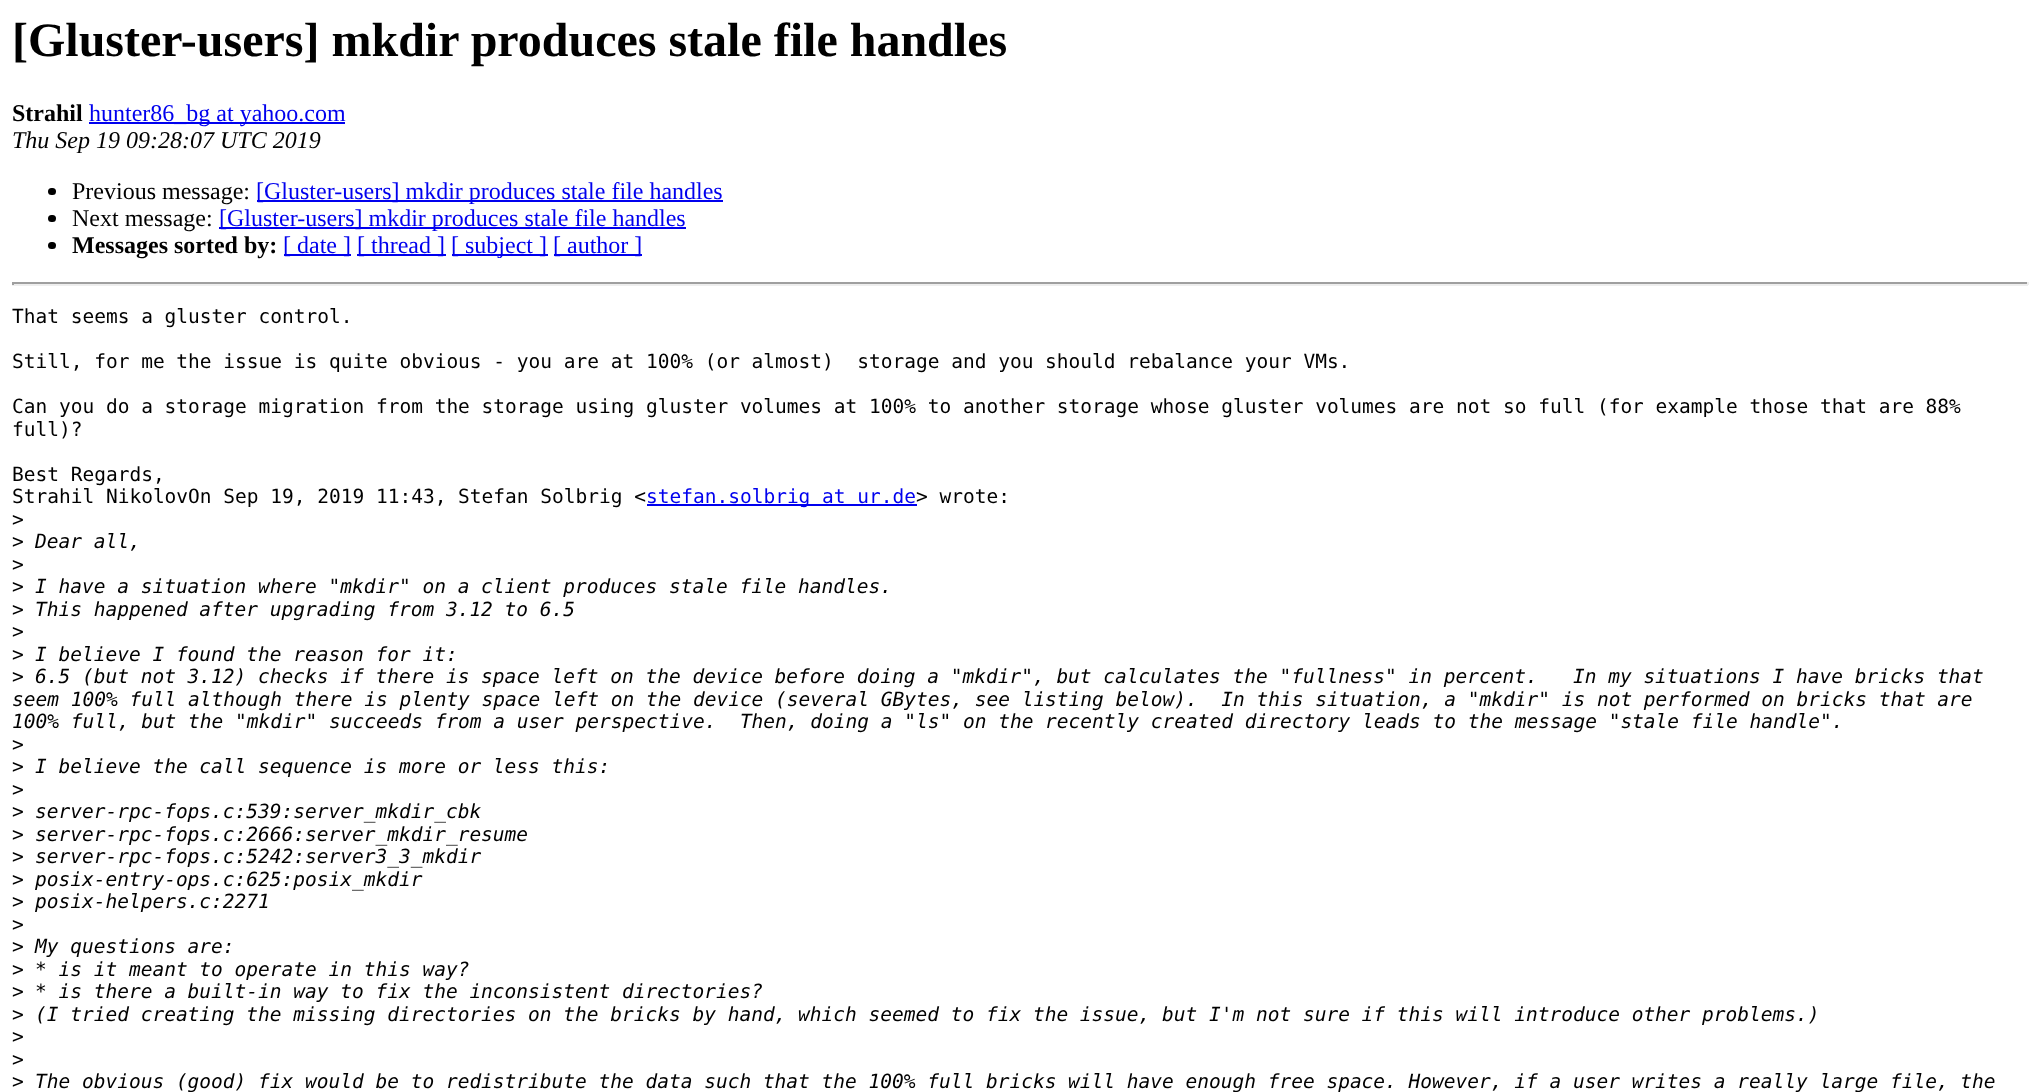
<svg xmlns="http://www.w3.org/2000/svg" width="2039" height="1092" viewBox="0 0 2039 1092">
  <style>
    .t1 { font: bold 48px Liberation Serif; fill: #000; }
    .t2 { font: bold 24px Liberation Serif; fill: #000; }
    .t3 { font: 24px Liberation Serif; fill: #00e; }
    .t4 { font: italic 24px Liberation Serif; fill: #000; }
    .t5 { font: 24px Liberation Serif; fill: #000; }
    .t6 { font: 19.5px DejaVu Sans Mono; fill: #000; }
    .t7 { font: 19.5px DejaVu Sans Mono; fill: #00e; }
    .t8 { font: italic 19.5px DejaVu Sans Mono; fill: #000; }
  </style>
  <rect width="100%" height="100%" fill="#fff"/>
  <text x="12" y="56" class="t1">[Gluster-users] mkdir produces stale file handles</text>
  <text x="12" y="121" class="t2">Strahil</text>
  <rect x="89" y="122" width="256" height="2" fill="#00e"/>
  <text x="89" y="121" class="t3">hunter86_bg at yahoo.com</text>
  <text x="12" y="148" class="t4">Thu Sep 19 09:28:07 UTC 2019</text>
  <rect x="48" y="188" width="8" height="7" rx="3.5" fill="#000"/>
  <text x="72" y="199" class="t5">Previous message:</text>
  <rect x="257" y="200" width="466" height="2" fill="#00e"/>
  <text x="256" y="199" class="t3">[Gluster-users] mkdir produces stale file handles</text>
  <rect x="48" y="215" width="8" height="7" rx="3.5" fill="#000"/>
  <text x="72" y="226" class="t5">Next message:</text>
  <rect x="219" y="227" width="467" height="2" fill="#00e"/>
  <text x="219" y="226" class="t3">[Gluster-users] mkdir produces stale file handles</text>
  <rect x="48" y="242" width="8" height="7" rx="3.5" fill="#000"/>
  <text x="72" y="253" class="t2">Messages sorted by:</text>
  <rect x="284" y="254" width="67" height="2" fill="#00e"/>
  <text x="283" y="253" class="t3">[ date ]</text>
  <rect x="357" y="254" width="89" height="2" fill="#00e"/>
  <text x="357" y="253" class="t3">[ thread ]</text>
  <rect x="452" y="254" width="96" height="2" fill="#00e"/>
  <text x="451" y="253" class="t3">[ subject ]</text>
  <rect x="554" y="254" width="88" height="2" fill="#00e"/>
  <text x="553" y="253" class="t3">[ author ]</text>
  <rect x="12" y="282" width="2016" height="2" fill="#9f9f9f"/>
  <rect x="2027" y="282" width="2" height="3" fill="#eee"/>
  <rect x="12" y="284" width="2016" height="2" fill="#eee"/>
  <rect x="12" y="282" width="2" height="3" fill="#9f9f9f"/>
  <text x="12" y="323" class="t6">That seems a gluster control.</text>
  <text x="12" y="368" class="t6" xml:space="preserve">Still, for me the issue is quite obvious - you are at 100% (or almost)  storage and you should rebalance your VMs.</text>
  <text x="12" y="413" class="t6">Can you do a storage migration from the storage using gluster volumes at 100% to another storage whose gluster volumes are not so full (for example those that are 88%</text>
  <text x="12" y="436" class="t6">full)?</text>
  <text x="12" y="481" class="t6">Best Regards,</text>
  <text x="12" y="503" class="t6">Strahil NikolovOn Sep 19, 2019 11:43, Stefan Solbrig &lt;</text>
  <rect x="647" y="504" width="270" height="2" fill="#00e"/>
  <text x="646" y="503" class="t7">stefan.solbrig at ur.de</text>
  <text x="916" y="503" class="t6">&gt; wrote:</text>
  <text x="12" y="526" class="t6">&gt;</text>
  <text x="12" y="548" class="t6">&gt;</text>
  <text x="35" y="548" class="t8">Dear all,</text>
  <text x="12" y="571" class="t6">&gt;</text>
  <text x="12" y="593" class="t6">&gt;</text>
  <text x="35" y="593" class="t8">I have a situation where "mkdir" on a client produces stale file handles.</text>
  <text x="12" y="616" class="t6">&gt;</text>
  <text x="35" y="616" class="t8">This happened after upgrading from 3.12 to 6.5</text>
  <text x="12" y="638" class="t6">&gt;</text>
  <text x="12" y="661" class="t6">&gt;</text>
  <text x="35" y="661" class="t8">I believe I found the reason for it:</text>
  <text x="12" y="683" class="t6">&gt;</text>
  <text x="35" y="683" class="t8" xml:space="preserve">6.5 (but not 3.12) checks if there is space left on the device before doing a "mkdir", but calculates the "fullness" in percent.   In my situations I have bricks that</text>
  <text x="12" y="706" class="t8" xml:space="preserve">seem 100% full although there is plenty space left on the device (several GBytes, see listing below).  In this situation, a "mkdir" is not performed on bricks that are</text>
  <text x="12" y="728" class="t8" xml:space="preserve">100% full, but the "mkdir" succeeds from a user perspective.  Then, doing a "ls" on the recently created directory leads to the message "stale file handle".</text>
  <text x="12" y="751" class="t6">&gt;</text>
  <text x="12" y="773" class="t6">&gt;</text>
  <text x="35" y="773" class="t8">I believe the call sequence is more or less this:</text>
  <text x="12" y="796" class="t6">&gt;</text>
  <text x="12" y="818" class="t6">&gt;</text>
  <text x="35" y="818" class="t8">server-rpc-fops.c:539:server_mkdir_cbk</text>
  <text x="12" y="841" class="t6">&gt;</text>
  <text x="35" y="841" class="t8">server-rpc-fops.c:2666:server_mkdir_resume</text>
  <text x="12" y="863" class="t6">&gt;</text>
  <text x="35" y="863" class="t8">server-rpc-fops.c:5242:server3_3_mkdir</text>
  <text x="12" y="886" class="t6">&gt;</text>
  <text x="35" y="886" class="t8">posix-entry-ops.c:625:posix_mkdir</text>
  <text x="12" y="908" class="t6">&gt;</text>
  <text x="35" y="908" class="t8">posix-helpers.c:2271</text>
  <text x="12" y="931" class="t6">&gt;</text>
  <text x="12" y="953" class="t6">&gt;</text>
  <text x="35" y="953" class="t8">My questions are:</text>
  <text x="12" y="976" class="t6">&gt;</text>
  <text x="35" y="976" class="t8">* is it meant to operate in this way?</text>
  <text x="12" y="998" class="t6">&gt;</text>
  <text x="35" y="998" class="t8">* is there a built-in way to fix the inconsistent directories?</text>
  <text x="12" y="1021" class="t6">&gt;</text>
  <text x="35" y="1021" class="t8">(I tried creating the missing directories on the bricks by hand, which seemed to fix the issue, but I'm not sure if this will introduce other problems.)</text>
  <text x="12" y="1043" class="t6">&gt;</text>
  <text x="12" y="1066" class="t6">&gt;</text>
  <text x="12" y="1088" class="t6">&gt;</text>
  <text x="35" y="1088" class="t8">The obvious (good) fix would be to redistribute the data such that the 100% full bricks will have enough free space. However, if a user writes a really large file, the</text>
</svg>
